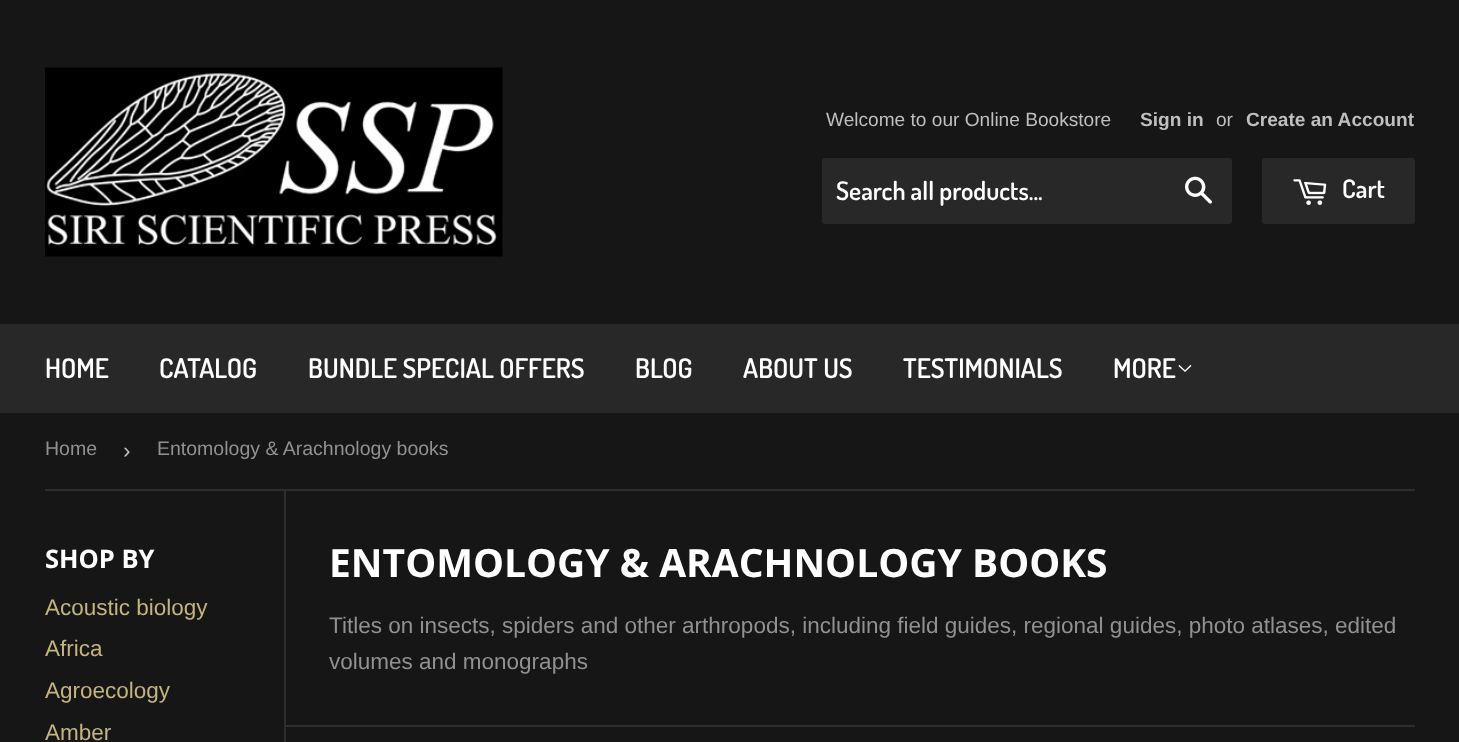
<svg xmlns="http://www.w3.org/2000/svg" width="1459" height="742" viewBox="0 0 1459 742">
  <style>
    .t1 { font: 19.1px Liberation Sans; fill: #bfbfbf; }
    .t2 { font: bold 19.1px Liberation Sans; fill: #bfbfbf; }
    .t3 { font: 600 25.5px Dosis; fill: #fff; }
    .t4 { font: 600 27px Dosis; fill: #fff; }
    .t5 { font: 19.5px Liberation Sans; fill: #919191; }
    .t6 { font: 22.5px Liberation Sans; fill: #bfbfbf; }
    .t7 { font: bold 25.5px Open Sans; fill: #fff; }
    .t8 { font: 22.5px Liberation Sans; fill: #c4b47f; }
    .t9 { font: bold 39px Open Sans; fill: #fff; }
    .t10 { font: 22.5px Liberation Sans; fill: #919191; }
  </style>
  <rect width="100%" height="100%" fill="#161616"/>
  <image x="45" y="67" width="458" height="190" href="images/1.png"/>
  <text x="826" y="126" class="t1">Welcome to our Online Bookstore</text>
  <text x="1140" y="126" class="t2">Sign in</text>
  <text x="1216" y="126" class="t1">or</text>
  <text x="1246" y="126" class="t2">Create an Account</text>
  <rect x="822" y="158" width="410" height="66" rx="3" fill="#282828"/>
  <text x="836" y="200" class="t3">Search all products...</text>
  <image x="1185" y="176" width="27" height="28" href="images/2.png"/>
  <rect x="1262" y="158" width="153" height="66" rx="3" fill="#282828"/>
  <image x="1293" y="179" width="34" height="26" href="images/3.png"/>
  <text x="1342" y="198" class="t3">Cart</text>
  <rect x="0" y="324" width="1459" height="89" fill="#282828"/>
  <text x="45" y="378" class="t4">HOME</text>
  <text x="159" y="378" class="t4">CATALOG</text>
  <text x="308" y="378" class="t4">BUNDLE SPECIAL OFFERS</text>
  <text x="635" y="378" class="t4">BLOG</text>
  <text x="743" y="378" class="t4">ABOUT US</text>
  <text x="903" y="378" class="t4">TESTIMONIALS</text>
  <text x="1113" y="378" class="t4">MORE</text>
  <image x="1178" y="364" width="14" height="8" href="images/4.png"/>
  <rect x="45" y="489" width="1370" height="2" fill="#2e2e2e"/>
  <text x="45" y="455" class="t5">Home</text>
  <text x="123" y="458" class="t6">›</text>
  <text x="157" y="455" class="t5">Entomology &amp; Arachnology books</text>
  <text x="45" y="568" class="t7">SHOP BY</text>
  <text x="45" y="615" class="t8">Acoustic biology</text>
  <text x="45" y="656" class="t8">Africa</text>
  <text x="45" y="698" class="t8">Agroecology</text>
  <text x="45" y="740" class="t8">Amber</text>
  <rect x="284" y="491" width="2" height="251" fill="#2e2e2e"/>
  <text x="329" y="577" class="t9">ENTOMOLOGY &amp; ARACHNOLOGY BOOKS</text>
  <text x="329" y="633" class="t10">Titles on insects, spiders and other arthropods, including field guides, regional guides, photo atlases, edited</text>
  <text x="329" y="669" class="t10">volumes and monographs</text>
  <rect x="285" y="725" width="1130" height="2" fill="#2e2e2e"/>
</svg>
